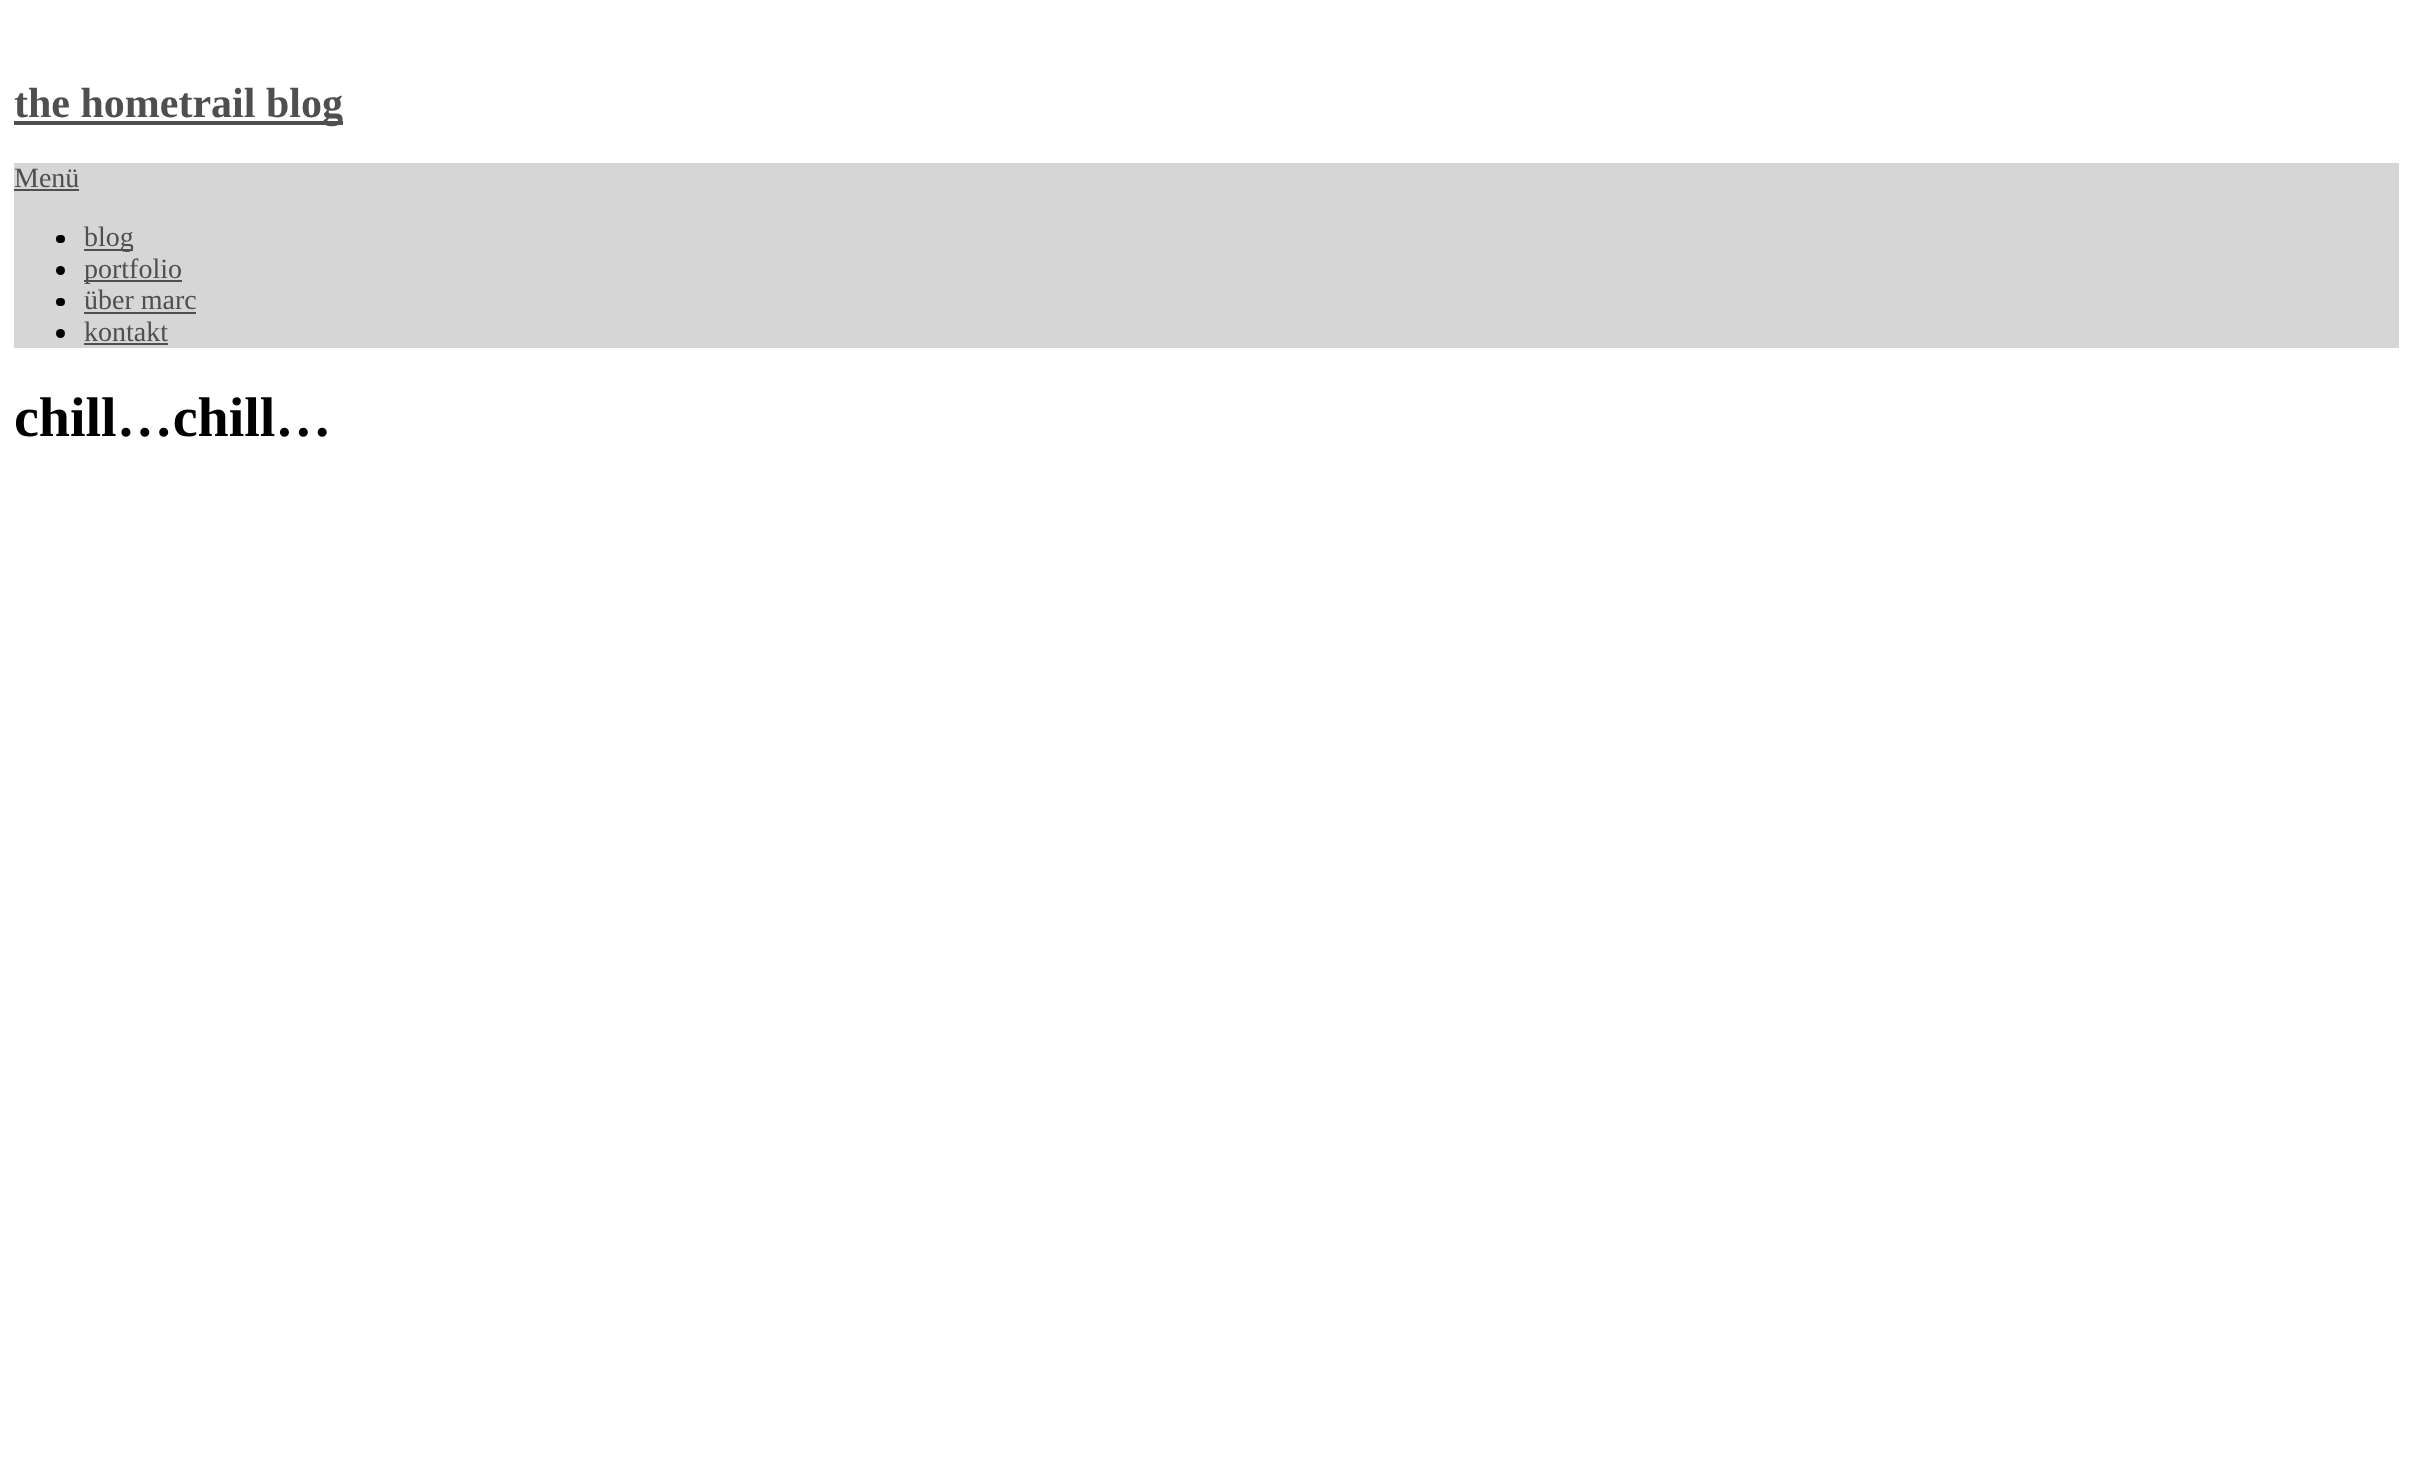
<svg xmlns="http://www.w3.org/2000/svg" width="2412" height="1466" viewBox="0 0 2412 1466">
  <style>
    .t1 { font: bold 42px Liberation Serif; fill: #4f4f4f; }
    .t2 { font: 28px Liberation Serif; fill: #4f4f4f; }
    .t3 { font: bold 56px Liberation Serif; fill: #000; }
  </style>
  <rect width="100%" height="100%" fill="#fff"/>
  <rect x="14" y="121" width="329" height="4" fill="#4f4f4f"/>
  <text x="14" y="117" class="t1">the hometrail blog</text>
  <rect x="14" y="163" width="2385" height="185" fill="#d6d6d6"/>
  <text x="14" y="187" class="t2">Menü</text>
  <rect x="14" y="189" width="65" height="2" fill="#4f4f4f"/>
  <rect x="56" y="235" width="9" height="8" rx="4" fill="#000"/>
  <rect x="84" y="249" width="49" height="2" fill="#4f4f4f"/>
  <text x="84" y="246" class="t2">blog</text>
  <circle cx="60.5" cy="270.5" r="4.5" fill="#000"/>
  <rect x="84" y="280" width="98" height="2" fill="#4f4f4f"/>
  <text x="84" y="278" class="t2">portfolio</text>
  <rect x="56" y="298" width="9" height="8" rx="4" fill="#000"/>
  <text x="84" y="309" class="t2">über marc</text>
  <rect x="84" y="312" width="112" height="2" fill="#4f4f4f"/>
  <circle cx="60.5" cy="333.5" r="4.5" fill="#000"/>
  <text x="84" y="341" class="t2">kontakt</text>
  <rect x="84" y="343" width="84" height="2" fill="#4f4f4f"/>
  <text x="14" y="436" class="t3">chill…chill…</text>
</svg>
